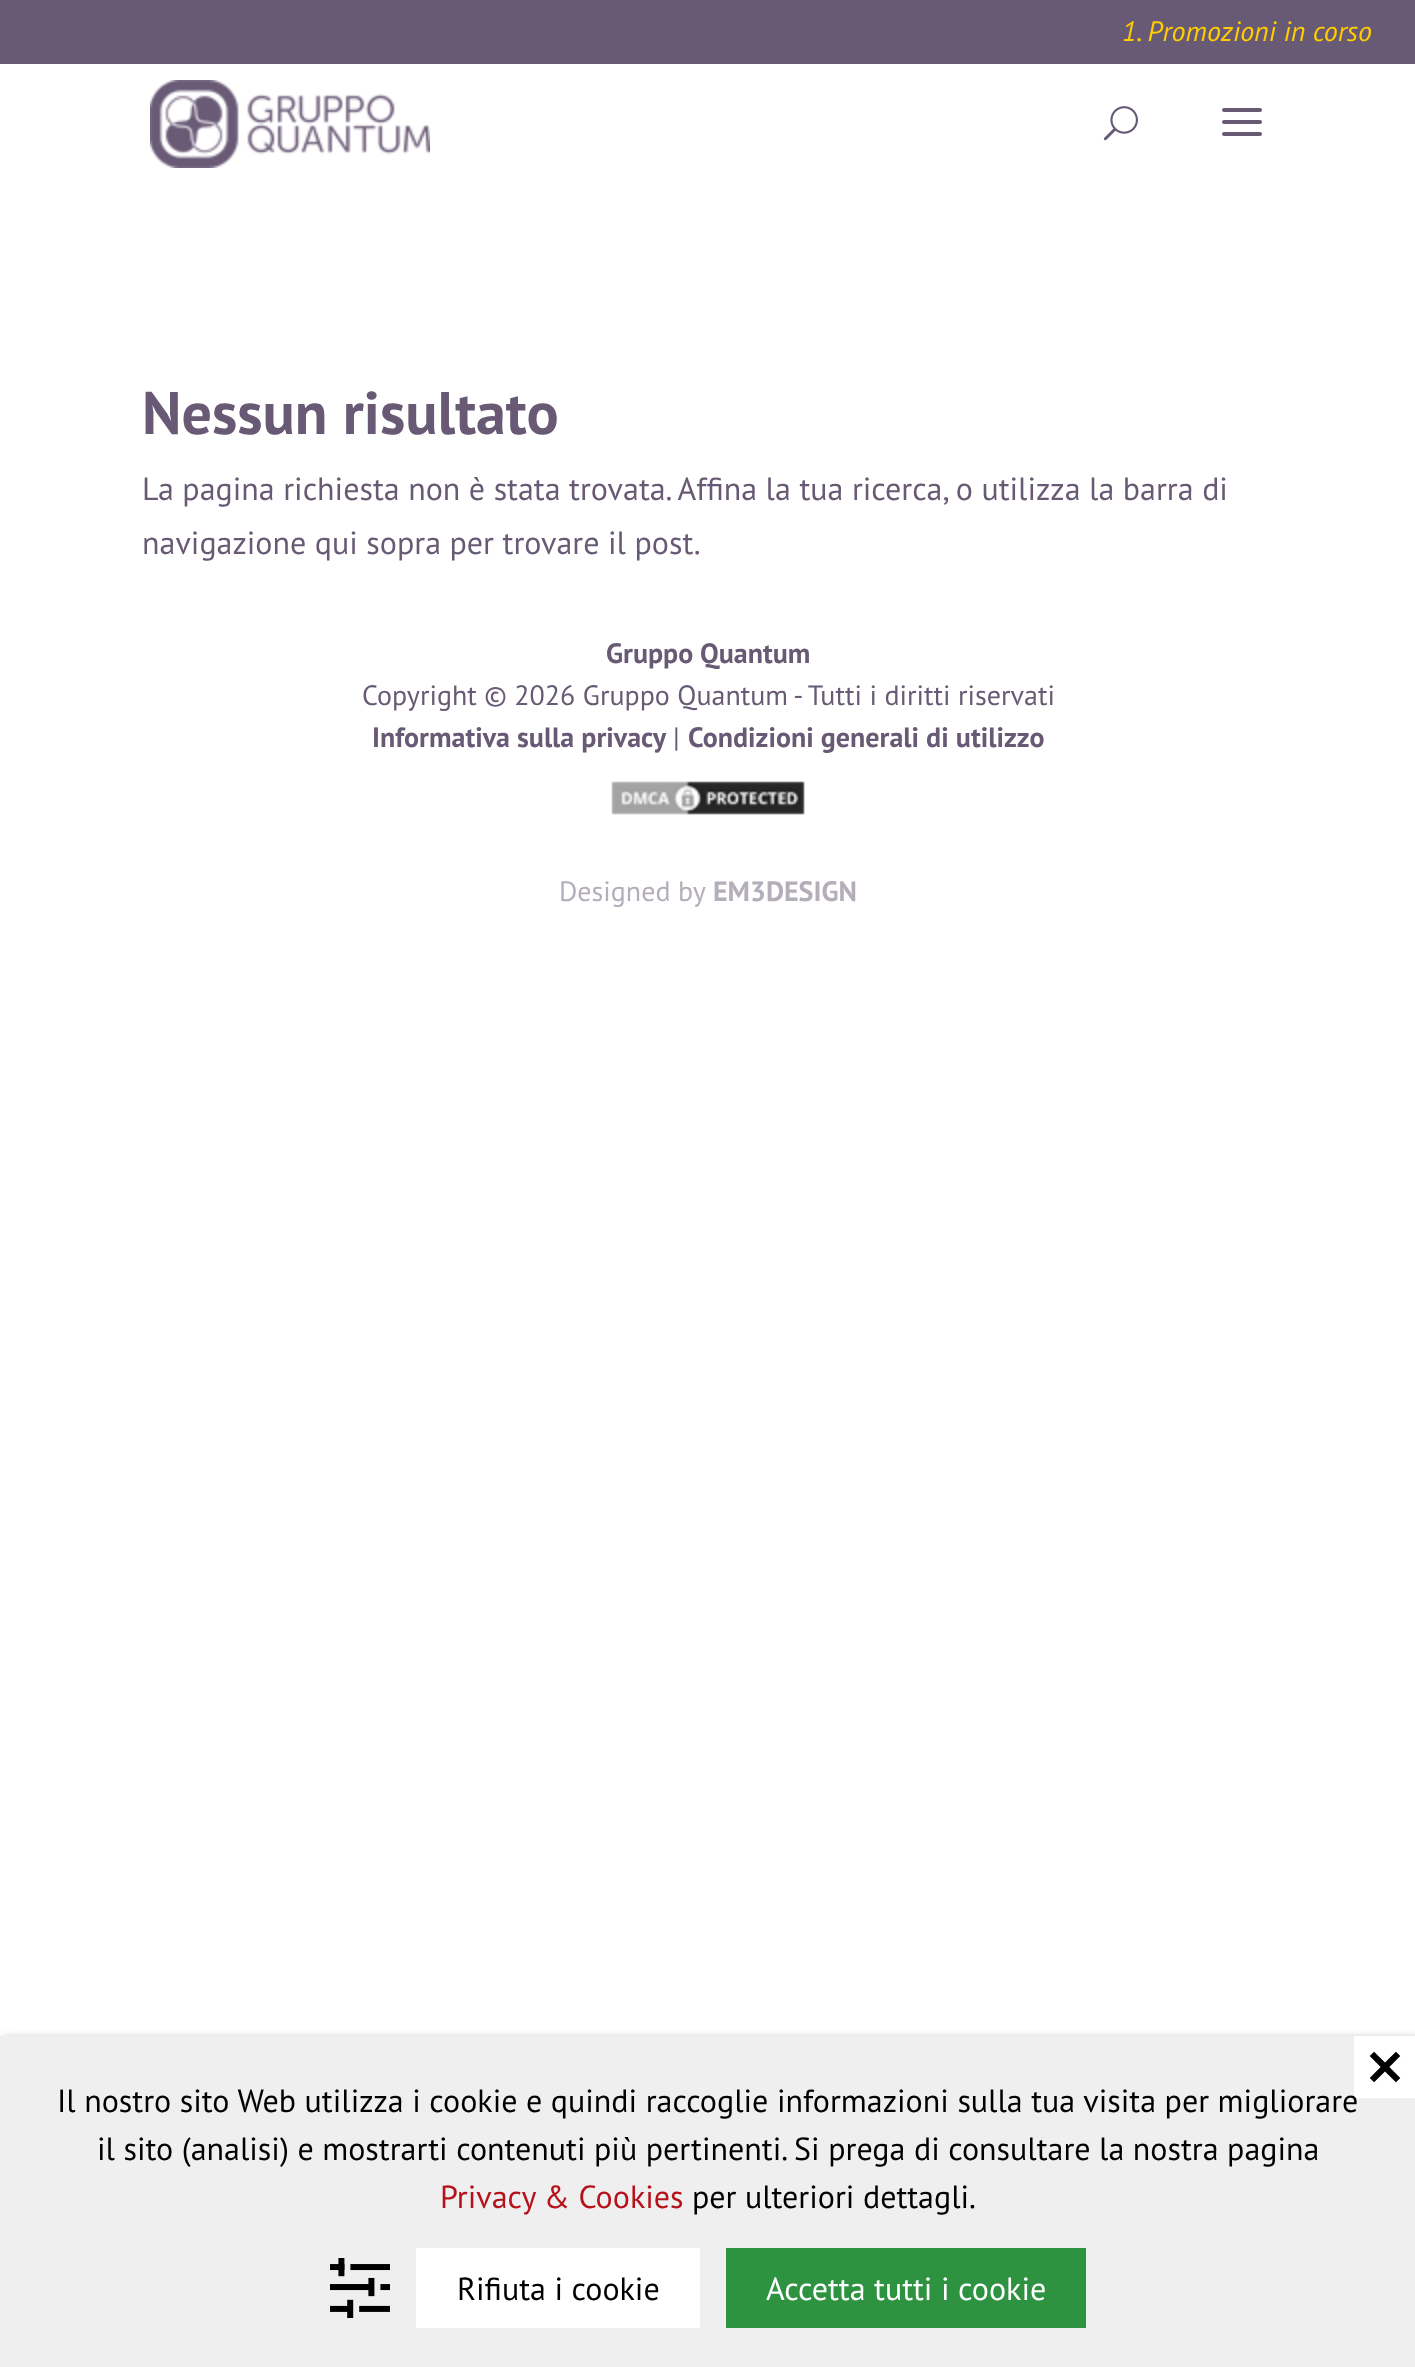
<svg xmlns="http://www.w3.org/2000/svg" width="1415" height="2367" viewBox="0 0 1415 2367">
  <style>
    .t1 { font: italic 28px PT Sans; fill: #ffcd00; }
    .t2 { font: bold 60px PT Sans; fill: #685a74; }
    .t3 { font: 32px PT Sans; fill: #685a74; }
    .t4 { font: bold 28px PT Sans; fill: #685a74; }
    .t5 { font: 28px PT Sans; fill: #685a74; }
    .t6 { font: 28px PT Sans; fill: #b4adba; }
    .t7 { font: bold 28px PT Sans; fill: #b4adba; }
    .t8 { font: 32px PT Sans; fill: #000; }
    .t9 { font: 32px PT Sans; fill: #b5121b; }
    .t10 { font: 32px PT Sans; fill: #fff; }
  </style>
  <rect width="100%" height="100%" fill="#fff"/>
  <rect x="0" y="0" width="1415" height="64" fill="#685a74"/>
  <text x="1122" y="41" class="t1">1. Promozioni in corso</text>
  <image x="150" y="80" width="280" height="88" href="images/1.png"/>
  <image x="1103" y="106" width="35" height="35" href="images/2.png"/>
  <image x="1222" y="108" width="40" height="28" href="images/3.png"/>
  <text x="142" y="434" class="t2">Nessun risultato</text>
  <text x="142" y="500" class="t3">La pagina richiesta non è stata trovata. Affina la tua ricerca, o utilizza la barra di</text>
  <text x="142" y="554" class="t3">navigazione qui sopra per trovare il post.</text>
  <text x="606" y="663" class="t4">Gruppo Quantum</text>
  <text x="362" y="705" class="t5">Copyright © 2026 Gruppo Quantum - Tutti i diritti riservati</text>
  <text x="372" y="747" class="t4">Informativa sulla privacy</text>
  <text x="673" y="747" class="t5">|</text>
  <text x="688" y="747" class="t4">Condizioni generali di utilizzo</text>
  <image x="611" y="781" width="194" height="34" href="images/4.png"/>
  <text x="559" y="901" class="t6">Designed by</text>
  <text x="713" y="901" class="t7">EM3DESIGN</text>
  <rect x="4" y="2040" width="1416" height="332" fill="#444444bf" filter="blur(5px)"/>
  <rect x="0" y="2036" width="1415" height="331" fill="#efefef"/>
  <rect x="1354" y="2036" width="61" height="62" fill="#fff"/>
  <image x="1369" y="2051" width="32" height="32" href="images/5.png"/>
  <text x="57" y="2112" class="t8">Il nostro sito Web utilizza i cookie e quindi raccoglie informazioni sulla tua visita per migliorare</text>
  <text x="97" y="2160" class="t8">il sito (analisi) e mostrarti contenuti più pertinenti. Si prega di consultare la nostra pagina</text>
  <text x="440" y="2208" class="t9">Privacy &amp; Cookies</text>
  <text x="692" y="2208" class="t8">per ulteriori dettagli.</text>
  <image x="330" y="2258" width="60" height="60" href="images/6.png"/>
  <rect x="416" y="2248" width="284" height="80" fill="#fff"/>
  <text x="457" y="2300" class="t8">Rifiuta i cookie</text>
  <rect x="726" y="2248" width="360" height="80" fill="#2d9340"/>
  <text x="766" y="2300" class="t10">Accetta tutti i cookie</text>
</svg>
